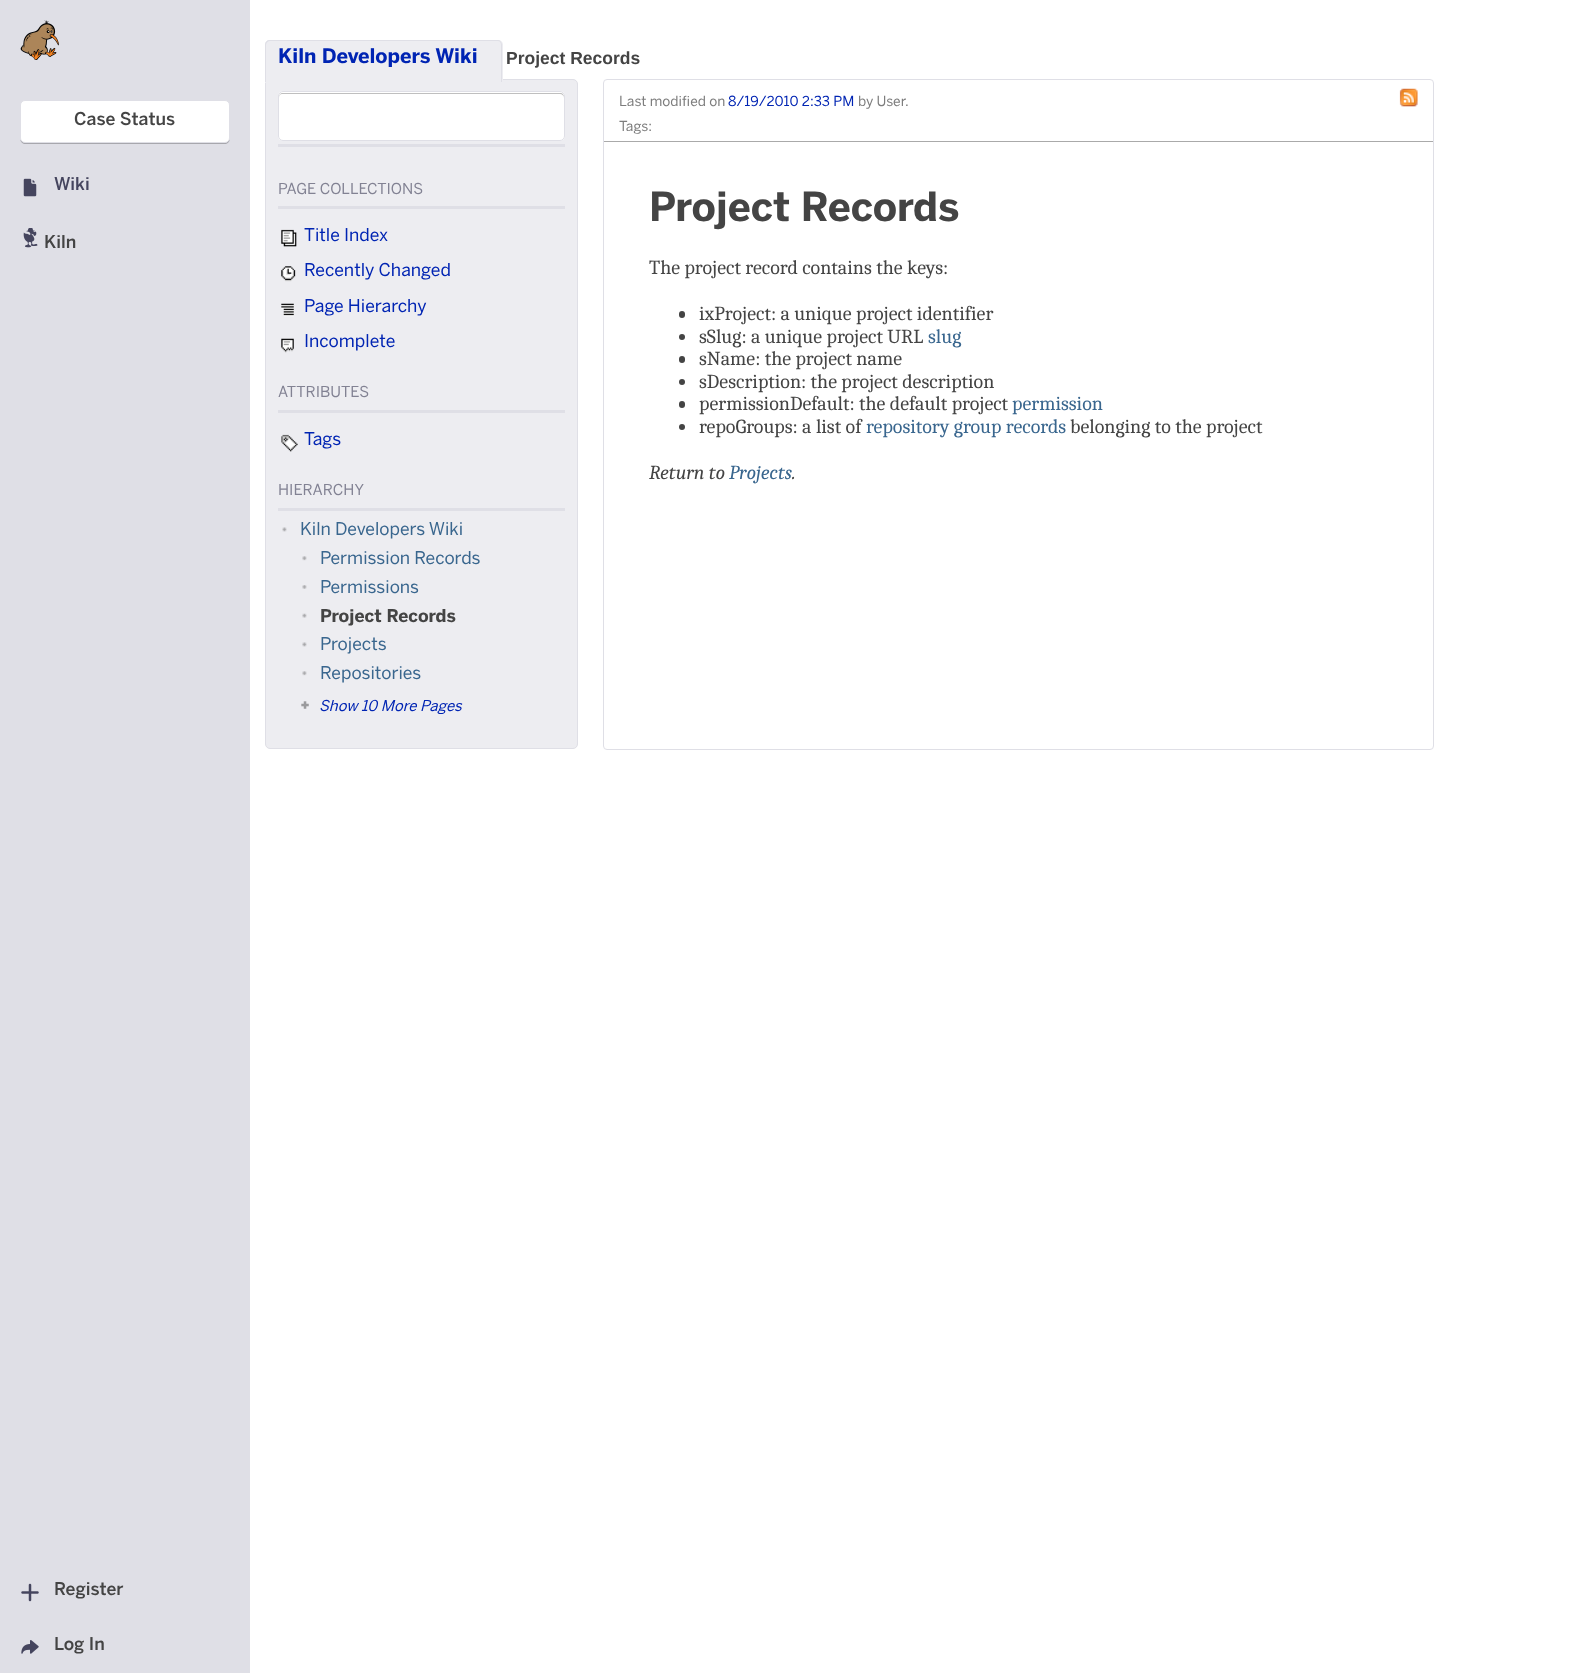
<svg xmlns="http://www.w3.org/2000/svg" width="1592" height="1673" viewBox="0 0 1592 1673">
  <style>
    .t1 { font: 500 17.5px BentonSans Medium; fill: #444; }
    .t2 { font: 500 17.5px BentonSans Medium; fill: #45455e; }
    .t3 { font: bold 20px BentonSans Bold; fill: #0024b3; }
    .t4 { font: bold 17.5px Liberation Sans; fill: #444; }
    .t5 { font: 15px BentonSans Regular; fill: #828293; }
    .t6 { font: 17.5px BentonSans Regular; fill: #0024b3; }
    .t7 { font: 17.5px BentonSans Regular; fill: #39668e; }
    .t8 { font: bold 17.5px BentonSans Bold; fill: #444; }
    .t9 { font: italic 15px BentonSans Regular; fill: #0024b3; }
    .t10 { font: 13.75px BentonSans Regular; fill: #7d7d7d; }
    .t11 { font: 13.75px BentonSans Regular; fill: #0024b3; }
    .t12 { font: bold 40px BentonSans Bold; fill: #444; }
    .t13 { font: 20px Caladea; fill: #444; }
    .t14 { font: 20px Caladea; fill: #39668e; }
    .t15 { font: italic 20px Caladea; fill: #444; }
    .t16 { font: italic 20px Caladea; fill: #39668e; }
  </style>
  <rect width="100%" height="100%" fill="#fff"/>
  <rect x="0" y="0" width="250" height="1673" fill="#dfdfe6"/>
  <image x="20" y="20" width="39" height="40" href="images/1.png"/>
  <path d="M20 138C20 140 21 143 24 144H226C229 143 230 140 230 138C230 140 228 142 225 142H25C22 142 20 140 20 138Z" fill="#a7a7ad"/>
  <rect x="20.5" y="100.5" width="209" height="42" rx="4.5" fill="#fff" stroke="#dfdfe6"/>
  <text x="74" y="125" class="t1">Case Status</text>
  <image x="23" y="178" width="14" height="19" href="images/2.png"/>
  <text x="54" y="190" class="t2">Wiki</text>
  <image x="23" y="228" width="15" height="20" href="images/3.png"/>
  <text x="44" y="248" class="t1">Kiln</text>
  <image x="21" y="1583" width="18" height="19" href="images/4.png"/>
  <text x="54" y="1595" class="t1">Register</text>
  <image x="21" y="1640" width="18" height="14" href="images/5.png"/>
  <text x="54" y="1650" class="t1">Log In</text>
  <path d="M265.5 79.5H573C575.5 79.5 577.5 81.5 577.5 84V744C577.5 746.5 575.5 748.5 573 748.5H270C267.5 748.5 265.5 746.5 265.5 744Z" fill="#ededf1" stroke="#dfdfe6"/>
  <path d="M270 40H498C501 40 503 42 503 45V83H265V45C265 42 267 40 270 40Z" fill="#ededf1"/>
  <path d="M270 40H498C500 40 502 42 502 45V82H265V45C265 42 267 40 270 40ZM270 41H498C500 41 501 43 501 45V82H266V45C266 43 268 41 270 41Z" fill="#dfdfe6" fill-rule="evenodd"/>
  <text x="278" y="63" class="t3">Kiln Developers Wiki</text>
  <text x="506" y="64" class="t4">Project Records</text>
  <rect x="278" y="91" width="287" height="50" rx="5" fill="#fff"/>
  <path d="M282 94H560C562 94 564 96 564 98C564 95 563 93 560 93H283C280 93 279 95 279 98C279 96 280 94 282 94Z" fill="#bfbfbf"/>
  <rect x="278.5" y="91.5" width="286" height="49" rx="4.5" fill="none" stroke="#dfdfe6"/>
  <rect x="278" y="144" width="287" height="3" fill="#dfdfe6"/>
  <text x="278" y="194" class="t5">PAGE COLLECTIONS</text>
  <rect x="278" y="206" width="287" height="3" fill="#dfdfe6"/>
  <image x="281" y="229" width="16" height="18" href="images/6.png"/>
  <text x="304" y="241" class="t6">Title Index</text>
  <image x="281" y="266" width="15" height="16" href="images/7.png"/>
  <text x="304" y="276" class="t6">Recently Changed</text>
  <image x="281" y="303" width="13" height="14" href="images/8.png"/>
  <text x="304" y="312" class="t6">Page Hierarchy</text>
  <image x="281" y="338" width="13" height="15" href="images/9.png"/>
  <text x="304" y="347" class="t6">Incomplete</text>
  <text x="278" y="397" class="t5">ATTRIBUTES</text>
  <rect x="278" y="410" width="287" height="3" fill="#dfdfe6"/>
  <image x="281" y="434" width="17" height="18" href="images/10.png"/>
  <text x="304" y="445" class="t6">Tags</text>
  <text x="278" y="495" class="t5">HIERARCHY</text>
  <rect x="278" y="508" width="287" height="3" fill="#dfdfe6"/>
  <image x="282" y="527" width="5" height="5" href="images/11.png"/>
  <text x="300" y="535" class="t7">Kiln Developers Wiki</text>
  <image x="302" y="556" width="5" height="5" href="images/12.png"/>
  <text x="320" y="564" class="t7">Permission Records</text>
  <image x="302" y="585" width="5" height="4" href="images/13.png"/>
  <text x="320" y="593" class="t7">Permissions</text>
  <image x="302" y="613" width="5" height="5" href="images/14.png"/>
  <text x="320" y="622" class="t8">Project Records</text>
  <image x="302" y="642" width="5" height="5" href="images/15.png"/>
  <text x="320" y="650" class="t7">Projects</text>
  <image x="302" y="671" width="5" height="5" href="images/12.png"/>
  <text x="320" y="679" class="t7">Repositories</text>
  <image x="301" y="701" width="8" height="8" href="images/16.png"/>
  <text x="319" y="711" class="t9">Show 10 More Pages</text>
  <rect x="603.5" y="79.5" width="830" height="670" rx="3.5" fill="none" stroke="#dfdfe6"/>
  <rect x="604" y="141" width="829" height="1" fill="#aaa"/>
  <text x="619" y="106" class="t10">Last modified on</text>
  <text x="728" y="106" class="t11">8/19/2010 2:33 PM</text>
  <text x="858" y="106" class="t10">by User</text>
  <text x="905" y="106" class="t10">.</text>
  <text x="619" y="131" class="t10">Tags:</text>
  <image x="1399" y="88" width="19" height="19" href="images/17.png"/>
  <text x="649" y="221" class="t12">Project Records</text>
  <text x="649" y="274" class="t13">The project record contains the keys:</text>
  <rect x="679" y="311" width="6" height="7" rx="3" fill="#444"/>
  <text x="699" y="320" class="t13">ixProject: a unique project identifier</text>
  <circle cx="682" cy="337" r="3" fill="#444"/>
  <text x="699" y="343" class="t13">sSlug: a unique project URL</text>
  <text x="928" y="343" class="t14">slug</text>
  <rect x="679" y="356" width="6" height="7" rx="3" fill="#444"/>
  <text x="699" y="365" class="t13">sName: the project name</text>
  <circle cx="682" cy="382" r="3" fill="#444"/>
  <text x="699" y="388" class="t13">sDescription: the project description</text>
  <rect x="679" y="401" width="6" height="7" rx="3" fill="#444"/>
  <text x="699" y="410" class="t13">permissionDefault: the default project</text>
  <text x="1012" y="410" class="t14">permission</text>
  <circle cx="682" cy="427" r="3" fill="#444"/>
  <text x="699" y="433" class="t13">repoGroups: a list of</text>
  <text x="866" y="433" class="t14">repository group records</text>
  <text x="1070" y="433" class="t13">belonging to the project</text>
  <text x="649" y="479" class="t15">Return to</text>
  <text x="729" y="479" class="t16">Projects</text>
  <text x="792" y="479" class="t15">.</text>
</svg>
